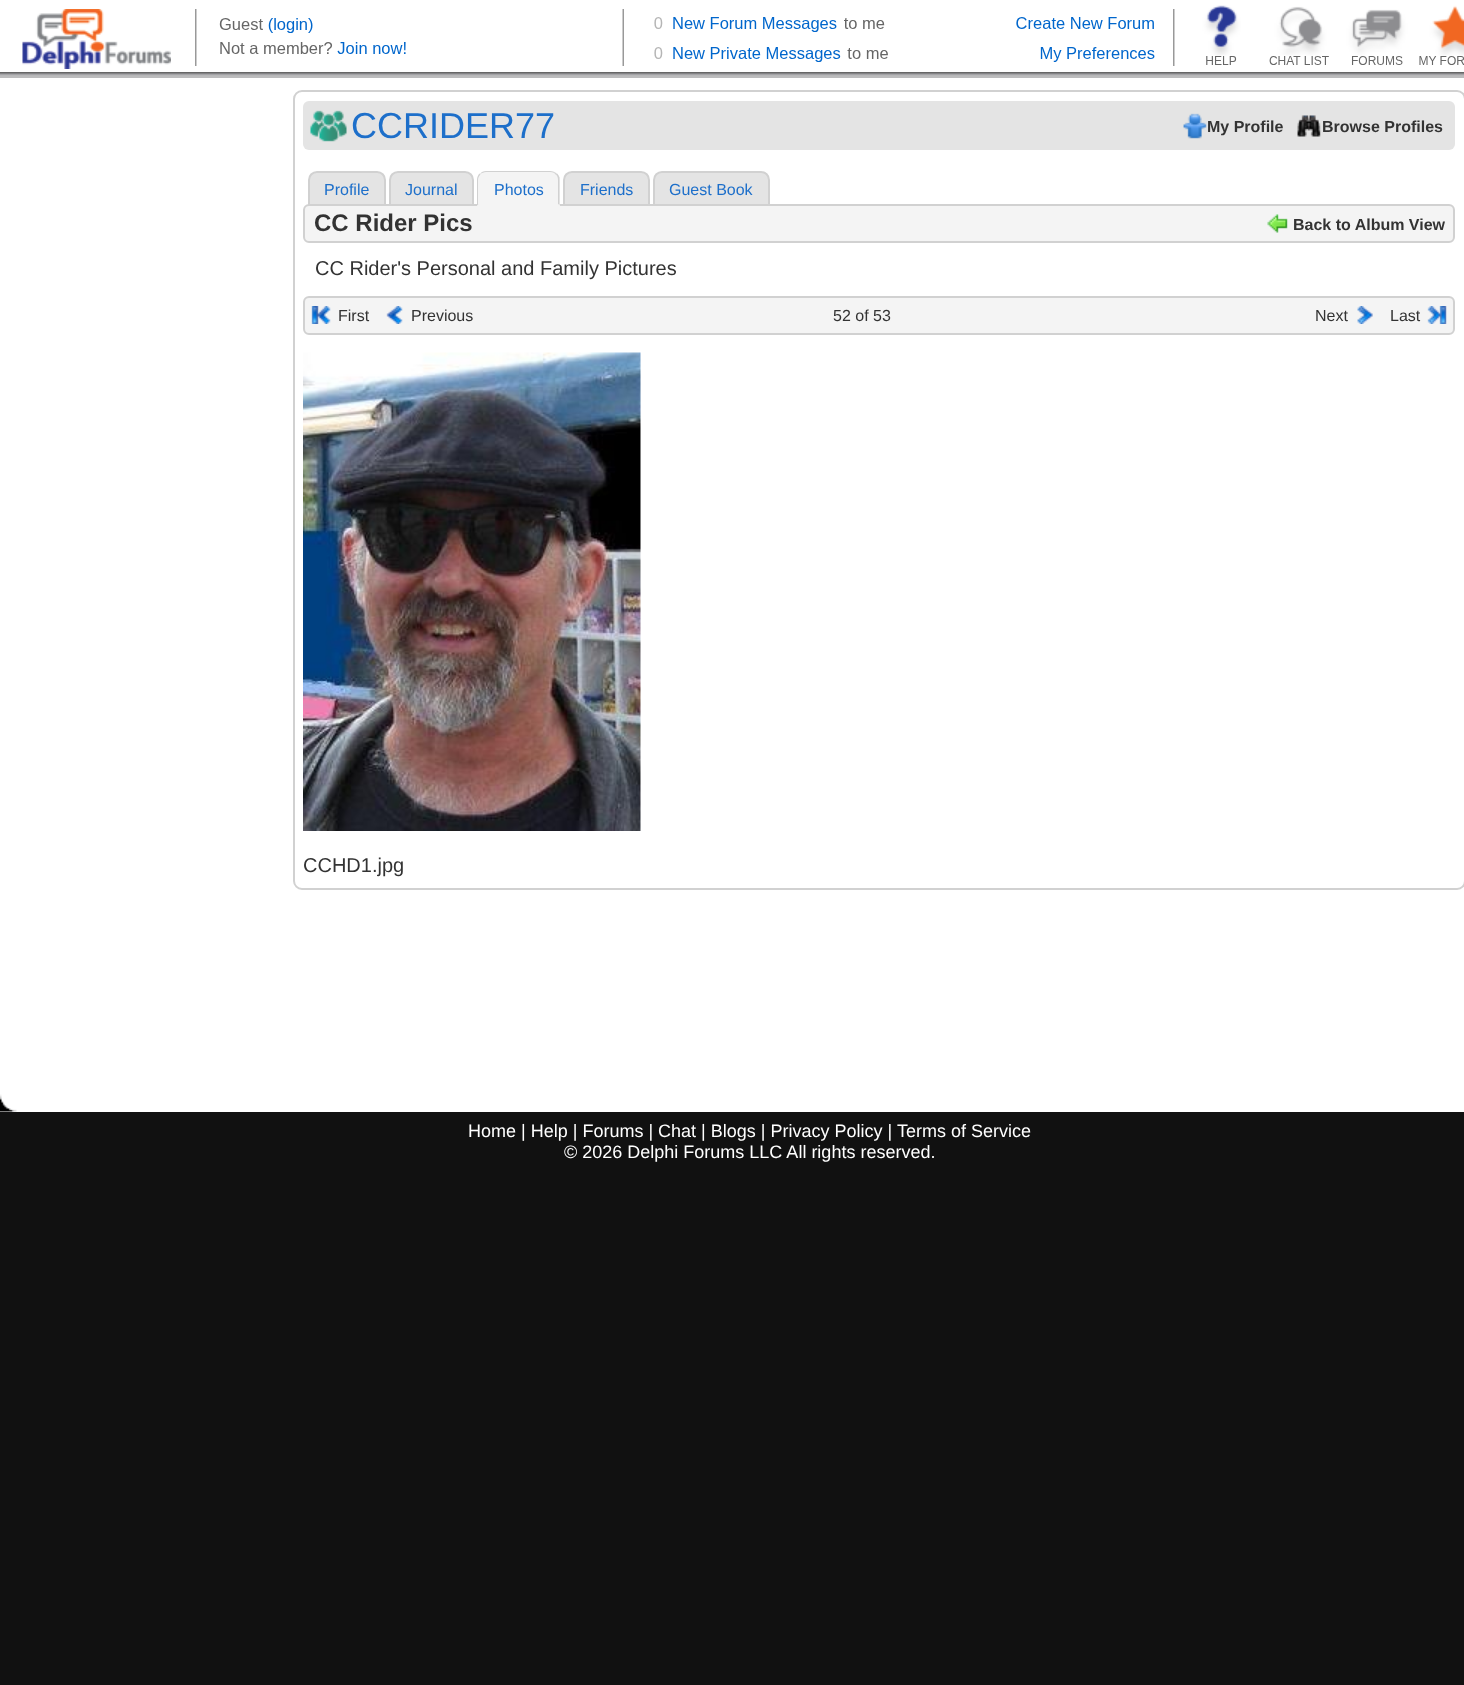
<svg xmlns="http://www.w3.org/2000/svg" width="1464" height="1685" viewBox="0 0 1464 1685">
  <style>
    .t1 { font: 36px Liberation Sans; fill: #1d6fca; }
    .t2 { font: bold 16px Liberation Sans; fill: #333; }
    .t3 { font: 16px Liberation Sans; fill: #1d6fca; }
    .t4 { font: bold 24px Liberation Sans; fill: #333; }
    .t5 { font: 20px Liberation Sans; fill: #333; }
    .t6 { font: 16px Liberation Sans; fill: #333; }
    .t7 { font: 18px Liberation Sans; fill: #fff; }
  </style>
  <rect width="100%" height="100%" fill="#111"/>
  <rect x="0" y="0" width="1464" height="1112" fill="#fff"/>
  <image x="0" y="1094" width="17" height="18" href="images/1.png"/>
  <image x="0" y="5" width="1464" height="73" href="images/2.png"/>
  <rect x="294" y="91" width="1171" height="798" rx="8" fill="none" stroke="#d1d1d1" stroke-width="2"/>
  <rect x="303" y="101" width="1152" height="49" rx="6" fill="#e4e4e4"/>
  <image x="310" y="110" width="37" height="32" href="images/3.png"/>
  <text x="351" y="138" class="t1">CCRIDER77</text>
  <image x="1183" y="113" width="24" height="26" href="images/4.png"/>
  <text x="1207" y="132" class="t2">My Profile</text>
  <image x="1297" y="115" width="24" height="22" href="images/5.png"/>
  <text x="1322" y="132" class="t2">Browse Profiles</text>
  <rect x="304" y="205" width="1150" height="37" rx="5" fill="#f4f4f4" stroke="#d1d1d1" stroke-width="2"/>
  <path d="M317 172H377C381.5 172 385 175.5 385 180V205H309V180C309 175.5 312.5 172 317 172Z" fill="#e4e4e4" stroke="#d1d1d1" stroke-width="2"/>
  <text x="324" y="195" class="t3">Profile</text>
  <path d="M398 172H465C469.5 172 473 175.5 473 180V205H390V180C390 175.5 393.5 172 398 172Z" fill="#e4e4e4" stroke="#d1d1d1" stroke-width="2"/>
  <text x="405" y="195" class="t3">Journal</text>
  <path d="M486 171H551C556 171 560 175 560 180V206H477V180C477 175 481 171 486 171Z" fill="#f4f4f4"/>
  <path d="M486 171C484 171 481 172 480 174C482 173 484 172 486 172H550C553 172 555 173 556 175L557 174C555 172 552 171 550 171Z" fill="#d1d1d1"/>
  <path d="M557 173.5C558 174.5 559 176 559.5 177.5V205.5L558 204V180C558 178 557.5 176 556 174.5Z" fill="#d1d1d1"/>
  <path d="M560 206L558 204H478L477 206Z" fill="#f4f4f4"/>
  <path d="M477 205.5L478.5 204H478V180C478 178 479 176 480.5 174.5L479.5 173.5C478 175 477 177.5 477 180Z" fill="#d1d1d1"/>
  <text x="494" y="195" class="t3">Photos</text>
  <path d="M572 172H641C645.5 172 649 175.5 649 180V205H564V180C564 175.5 567.5 172 572 172Z" fill="#e4e4e4" stroke="#d1d1d1" stroke-width="2"/>
  <text x="580" y="195" class="t3">Friends</text>
  <path d="M662 172H761C765.5 172 769 175.5 769 180V205H654V180C654 175.5 657.5 172 662 172Z" fill="#e4e4e4" stroke="#d1d1d1" stroke-width="2"/>
  <text x="669" y="195" class="t3">Guest Book</text>
  <text x="314" y="231" class="t4">CC Rider Pics</text>
  <rect x="1451" y="239" width="1" height="1" fill="#f4f4f4"/>
  <image x="1267" y="214" width="21" height="19" href="images/6.png"/>
  <text x="1293" y="230" class="t2">Back to Album View</text>
  <text x="315" y="275" class="t5">CC Rider's Personal and Family Pictures</text>
  <rect x="304" y="297" width="1150" height="37" rx="5" fill="#f4f4f4" stroke="#d1d1d1" stroke-width="2"/>
  <image x="311" y="306" width="20" height="18" href="images/7.png"/>
  <text x="338" y="321" class="t6">First</text>
  <image x="386" y="306" width="17" height="18" href="images/8.png"/>
  <text x="411" y="321" class="t6">Previous</text>
  <text x="833" y="321" class="t6">52 of 53</text>
  <text x="1315" y="321" class="t6">Next</text>
  <image x="1357" y="306" width="16" height="18" href="images/9.png"/>
  <text x="1390" y="321" class="t6">Last</text>
  <image x="1427" y="306" width="20" height="18" href="images/10.png"/>
  <image x="303" y="352" width="338" height="479" href="images/11.png"/>
  <text x="303" y="872" class="t5">CCHD1.jpg</text>
  <text x="468" y="1137" class="t7">Home | Help | Forums | Chat | Blogs | Privacy Policy |</text>
  <text x="897" y="1137" class="t7">Terms of Service</text>
  <text x="564" y="1158" class="t7">© 2026 Delphi Forums LLC All rights reserved.</text>
</svg>
